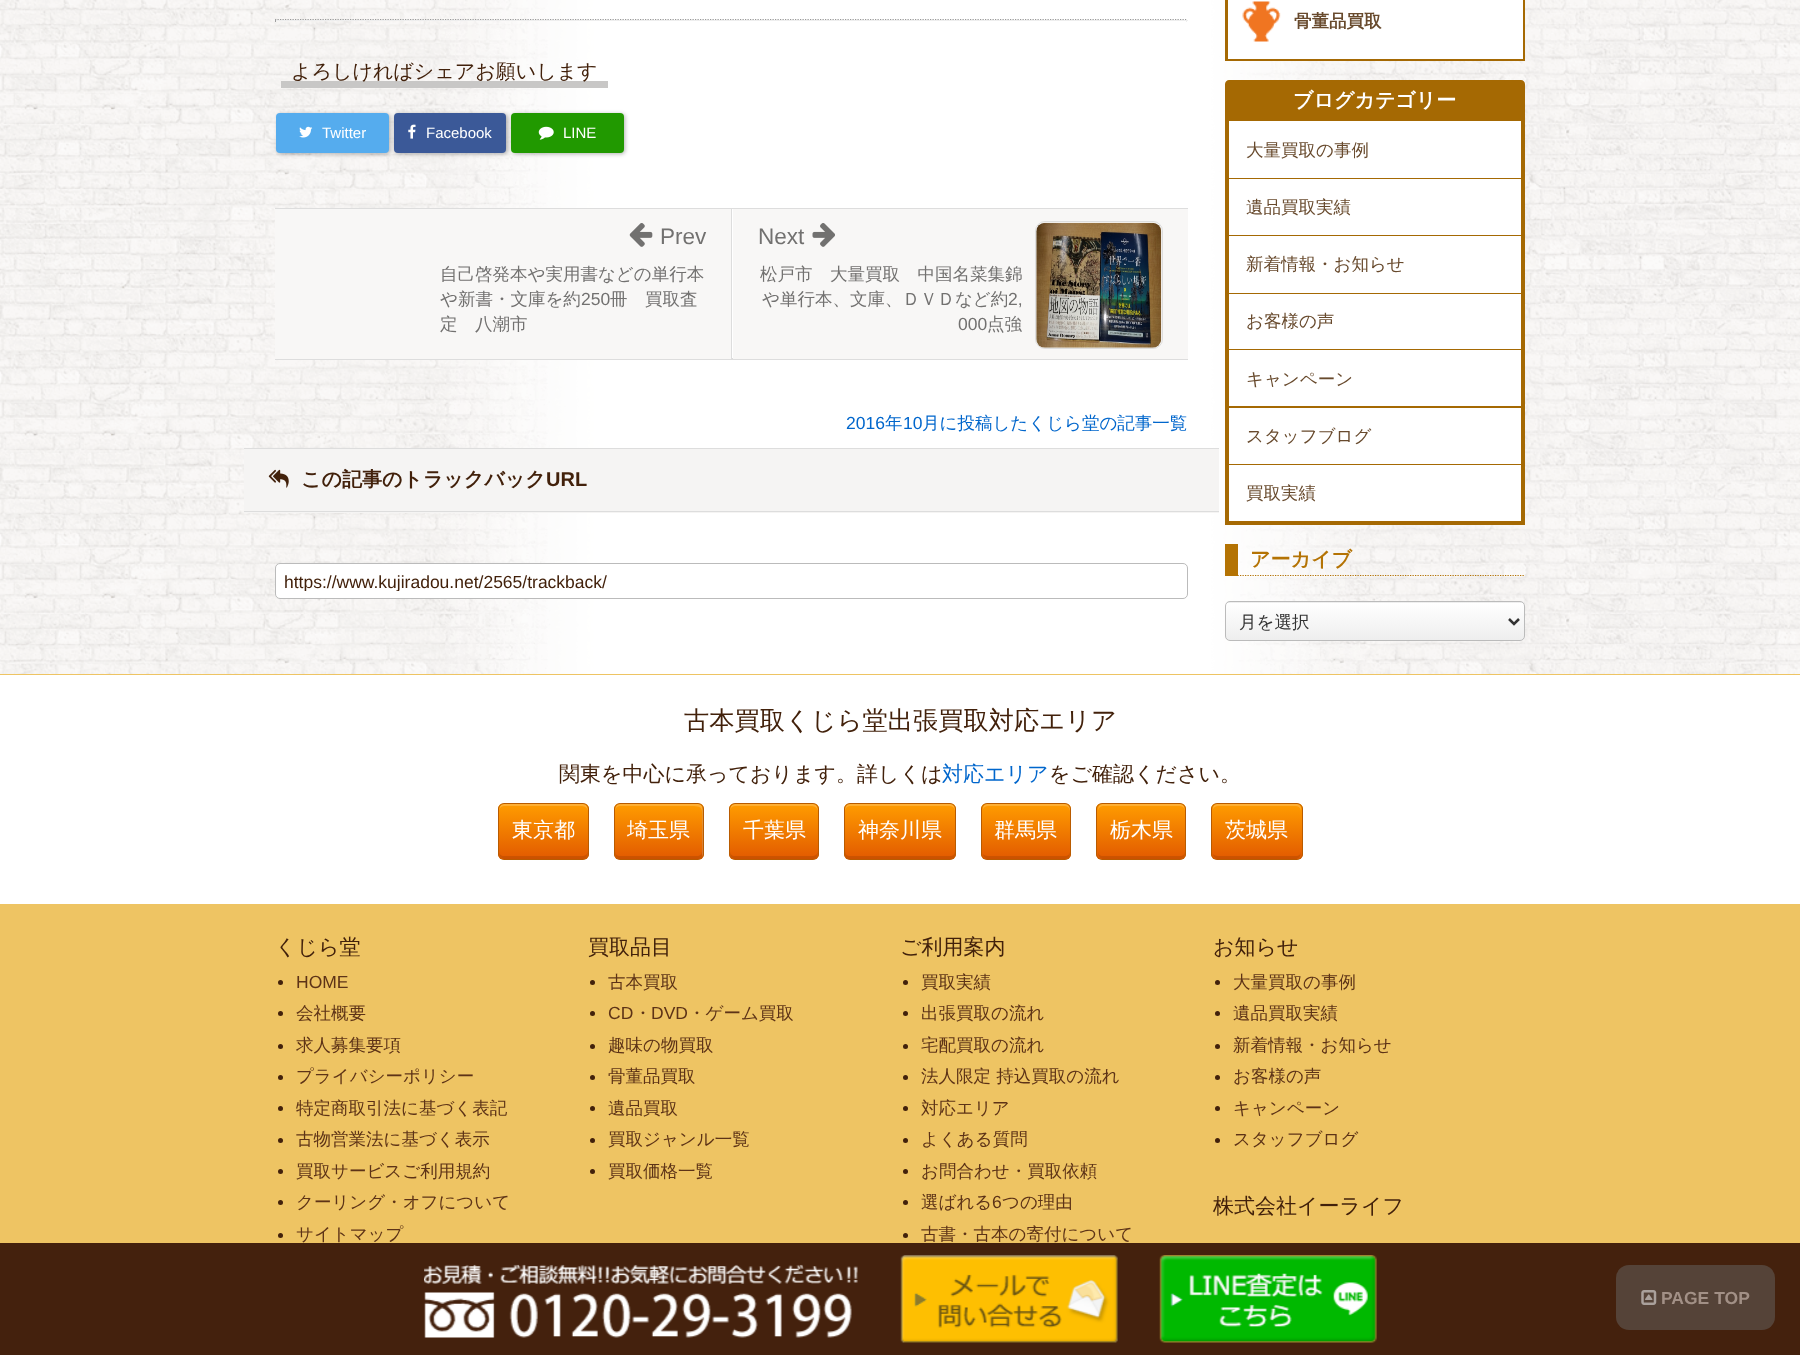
<svg xmlns="http://www.w3.org/2000/svg" width="1800" height="1355" viewBox="0 0 1800 1355">
  <style>
    .t1 { font: 500 20px WenQuanYi Zen Hei; fill: #42210b; }
    .t2 { font: 15px Liberation Sans; fill: #fff; }
    .t3 { font: 22.5px Liberation Sans; fill: #727170; }
    .t4 { font: 500 17.5px WenQuanYi Zen Hei; fill: #727170; }
    .t5 { font: 17.5px Liberation Sans; fill: #727170; }
    .t6 { font: 17.5px Liberation Sans; fill: #06c; }
    .t7 { font: 500 17.5px WenQuanYi Zen Hei; fill: #06c; }
    .t8 { font: bold 20px WenQuanYi Zen Hei; fill: #42210b; }
    .t9 { font: bold 20px Liberation Sans; fill: #42210b; }
    .t10 { font: 17.5px Liberation Sans; fill: #42210b; }
    .t11 { font: bold 17.5px WenQuanYi Zen Hei; fill: #684a2d; }
    .t12 { font: bold 20px WenQuanYi Zen Hei; fill: #fff; }
    .t13 { font: 500 17.5px WenQuanYi Zen Hei; fill: #684a2d; }
    .t14 { font: bold 20px WenQuanYi Zen Hei; fill: #b47304; }
    .t15 { font: 500 17.5px WenQuanYi Zen Hei; fill: #333; }
    .t16 { font: 500 25.25px WenQuanYi Zen Hei; fill: #42210b; }
    .t17 { font: 500 21px WenQuanYi Zen Hei; fill: #42210b; }
    .t18 { font: 500 21px WenQuanYi Zen Hei; fill: #06c; }
    .t19 { font: 500 21px WenQuanYi Zen Hei; fill: #fff; }
    .t20 { font: 17.5px Liberation Sans; fill: #5d3317; }
    .t21 { font: 500 17.5px WenQuanYi Zen Hei; fill: #5d3317; }
    .t22 { font: bold 17.5px Liberation Sans; fill: #a29086; }
  </style>
  <defs>
    <clipPath id="clip1"><rect x="284" y="571" width="895" height="20"/></clipPath>
    <clipPath id="clip2"><rect x="1225" y="601" width="300" height="40" rx="5"/></clipPath>
    <linearGradient id="g1" gradientUnits="userSpaceOnUse" x1="1375" y1="565" x2="1375" y2="603"><stop offset="0" stop-color="#fff"/><stop offset="1" stop-color="#eee"/></linearGradient>
    <linearGradient id="g2" gradientUnits="userSpaceOnUse" x1="1375" y1="603" x2="1375" y2="640"><stop offset="0" stop-color="#fff"/><stop offset="1" stop-color="#eee"/></linearGradient>
    <clipPath id="clip3"><rect x="498" y="803" width="91" height="57" rx="6"/></clipPath>
    <linearGradient id="g3" gradientUnits="userSpaceOnUse" x1="543" y1="804" x2="543" y2="859"><stop offset="0" stop-color="#ff9c00"/><stop offset="1" stop-color="#e25a00"/></linearGradient>
    <clipPath id="clip4"><rect x="614" y="803" width="90" height="57" rx="6"/></clipPath>
    <linearGradient id="g4" gradientUnits="userSpaceOnUse" x1="659" y1="804" x2="659" y2="859"><stop offset="0" stop-color="#ff9c00"/><stop offset="1" stop-color="#e25a00"/></linearGradient>
    <clipPath id="clip5"><rect x="729" y="803" width="90" height="57" rx="6"/></clipPath>
    <linearGradient id="g5" gradientUnits="userSpaceOnUse" x1="774" y1="804" x2="774" y2="859"><stop offset="0" stop-color="#ff9c00"/><stop offset="1" stop-color="#e25a00"/></linearGradient>
    <clipPath id="clip6"><rect x="844" y="803" width="112" height="57" rx="6"/></clipPath>
    <linearGradient id="g6" gradientUnits="userSpaceOnUse" x1="900" y1="804" x2="900" y2="859"><stop offset="0" stop-color="#ff9c00"/><stop offset="1" stop-color="#e25a00"/></linearGradient>
    <clipPath id="clip7"><rect x="981" y="803" width="90" height="57" rx="6"/></clipPath>
    <linearGradient id="g7" gradientUnits="userSpaceOnUse" x1="1026" y1="804" x2="1026" y2="859"><stop offset="0" stop-color="#ff9c00"/><stop offset="1" stop-color="#e25a00"/></linearGradient>
    <clipPath id="clip8"><rect x="1096" y="803" width="90" height="57" rx="6"/></clipPath>
    <linearGradient id="g8" gradientUnits="userSpaceOnUse" x1="1141" y1="804" x2="1141" y2="859"><stop offset="0" stop-color="#ff9c00"/><stop offset="1" stop-color="#e25a00"/></linearGradient>
    <clipPath id="clip9"><rect x="1211" y="803" width="92" height="57" rx="6"/></clipPath>
    <linearGradient id="g9" gradientUnits="userSpaceOnUse" x1="1257" y1="804" x2="1257" y2="859"><stop offset="0" stop-color="#ff9c00"/><stop offset="1" stop-color="#e25a00"/></linearGradient>
  </defs>
  <rect width="100%" height="100%" fill="#fff"/>
  <image x="0" y="0" width="1800" height="674" href="images/1.png"/>
  <path d="M275 19.5H1187.5" fill="none" stroke="#999" stroke-width="1.2" stroke-dasharray="1.25 1.25"/>
  <rect x="1186" y="19" width="1" height="3" fill="#eee"/>
  <rect x="275" y="20" width="913" height="1" fill="#eee"/>
  <rect x="275" y="19" width="1" height="3" fill="#9f9f9f"/>
  <rect x="281" y="81" width="327" height="7" fill="#c8c7c6"/>
  <text x="291" y="78" class="t1">よろしければシェアお願いします</text>
  <rect x="278" y="114" width="112" height="40" rx="4" fill="#0000004d" filter="blur(2px)"/>
  <rect x="276" y="113" width="113" height="40" rx="4" fill="#55acee"/>
  <image x="299" y="126" width="14" height="12" href="images/2.png"/>
  <text x="322" y="138" class="t2">Twitter</text>
  <rect x="395" y="114" width="113" height="40" rx="4" fill="#0000004d" filter="blur(2px)"/>
  <rect x="394" y="113" width="112" height="40" rx="4" fill="#3b5998"/>
  <image x="408" y="124" width="8" height="15" href="images/3.png"/>
  <text x="426" y="138" class="t2">Facebook</text>
  <rect x="513" y="114" width="112" height="40" rx="4" fill="#0000004d" filter="blur(2px)"/>
  <rect x="511" y="113" width="113" height="40" rx="4" fill="#219900"/>
  <image x="538" y="126" width="16" height="14" href="images/4.png"/>
  <text x="563" y="138" class="t2">LINE</text>
  <rect x="275" y="359" width="913" height="1" fill="#ddd"/>
  <rect x="275" y="209" width="456" height="150" fill="#f8f7f6"/>
  <image x="629" y="223" width="24" height="24" href="images/5.png"/>
  <text x="660" y="244" class="t3">Prev</text>
  <text x="440" y="280" class="t4">自己啓発本や実用書などの単行本</text>
  <text x="440" y="305" class="t4">や新書・文庫を約</text>
  <text x="581" y="305" class="t5">250</text>
  <text x="610" y="305" class="t4">冊　買取査</text>
  <text x="440" y="330" class="t4">定　八潮市</text>
  <rect x="275" y="208" width="913" height="1" fill="#ddd"/>
  <rect x="731" y="358" width="2" height="1" fill="#ddd"/>
  <rect x="731" y="208" width="1" height="151" fill="#ddd"/>
  <rect x="733" y="209" width="455" height="150" fill="#f8f7f6"/>
  <text x="758" y="244" class="t3">Next</text>
  <image x="812" y="223" width="23" height="24" href="images/6.png"/>
  <rect x="1035.5" y="221.5" width="127" height="127" rx="9.5" fill="none" stroke="#ddd"/>
  <image x="1036" y="222" width="126" height="126" href="images/7.png"/>
  <text x="760" y="280" class="t4">松戸市　大量買取　中国名菜集錦</text>
  <text x="762" y="305" class="t4">や単行本、文庫、ＤＶＤなど約</text>
  <text x="1008" y="305" class="t5">2,</text>
  <text x="958" y="330" class="t5">000</text>
  <text x="987" y="330" class="t4">点強</text>
  <text x="846" y="429" class="t6">2016</text>
  <text x="885" y="429" class="t7">年</text>
  <text x="903" y="429" class="t6">10</text>
  <text x="922" y="429" class="t7">月に投稿したくじら堂の記事一覧</text>
  <rect x="244" y="449" width="975" height="64" fill="#f5f4f3"/>
  <rect x="244" y="448" width="975" height="1" fill="#ddd"/>
  <rect x="244" y="511" width="975" height="1" fill="#ddd"/>
  <image x="268" y="469" width="21" height="19" href="images/8.png"/>
  <text x="301" y="486" class="t8">この記事のトラックバック</text>
  <text x="546" y="486" class="t9">URL</text>
  <rect x="275.5" y="563.5" width="912" height="35" rx="4.5" fill="#fff" stroke="#bbb"/>
  <g clip-path="url(#clip1)">
    <text x="284" y="588" class="t10">https://www.kujiradou.net/2565/trackback/</text>
  </g>
  <rect x="1225" y="0" width="300" height="61" fill="#a56903"/>
  <rect x="1228" y="0" width="295" height="59" fill="#fff"/>
  <image x="1242" y="1" width="39" height="41" href="images/9.png"/>
  <text x="1294" y="27" class="t11">骨董品買取</text>
  <path d="M1229 80H1521C1523 80 1525 82 1525 84V121H1225V84C1225 82 1227 80 1229 80Z" fill="#a56903"/>
  <text x="1293" y="107" class="t12">ブログカテゴリー</text>
  <rect x="1225" y="121" width="300" height="404" fill="#a56903"/>
  <rect x="1229" y="121" width="292" height="57" fill="#fff"/>
  <text x="1246" y="156" class="t13">大量買取の事例</text>
  <rect x="1229" y="179" width="292" height="56" fill="#fff"/>
  <text x="1246" y="213" class="t13">遺品買取実績</text>
  <rect x="1229" y="236" width="292" height="57" fill="#fff"/>
  <text x="1246" y="270" class="t13">新着情報・お知らせ</text>
  <rect x="1229" y="294" width="292" height="55" fill="#fff"/>
  <text x="1246" y="327" class="t13">お客様の声</text>
  <rect x="1229" y="350" width="292" height="56" fill="#fff"/>
  <text x="1246" y="385" class="t13">キャンペーン</text>
  <rect x="1229" y="408" width="292" height="56" fill="#fff"/>
  <text x="1246" y="442" class="t13">スタッフブログ</text>
  <rect x="1229" y="465" width="292" height="56" fill="#fff"/>
  <text x="1246" y="499" class="t13">買取実績</text>
  <path d="M1225 575.5H1525" fill="none" stroke="#b47304" stroke-width="1.2" stroke-dasharray="1.25 1.25"/>
  <rect x="1225" y="544" width="13" height="32" fill="#b47304"/>
  <text x="1250" y="566" class="t14">アーカイブ</text>
  <g clip-path="url(#clip2)">
    <rect x="1225" y="601" width="300" height="2" fill="url(#g1)"/>
    <rect x="1225" y="603" width="300" height="37" fill="url(#g2)"/>
  </g>
  <rect x="1225.5" y="601.5" width="299" height="39" rx="4.5" fill="none" stroke="#bbb"/>
  <path d="M1509 619L1514 624L1519 619" fill="none" stroke="#333" stroke-width="2.5"/>
  <text x="1239" y="628" class="t15">月を選択</text>
  <rect x="0" y="674" width="1800" height="1" fill="#eec463"/>
  <text x="684" y="729" class="t16">古本買取くじら堂出張買取対応エリア</text>
  <text x="559" y="781" class="t17">関東を中心に承っております。詳しくは</text>
  <text x="942" y="781" class="t18">対応エリア</text>
  <text x="1049" y="781" class="t17">をご確認ください。</text>
  <g clip-path="url(#clip3)">
    <rect x="498" y="804" width="91" height="55" fill="url(#g3)"/>
  </g>
  <path d="M499 851C499 862 507 859 517 859H570C580 859 588 862 588 851C588 854 585 856 582 856H504C501 856 499 854 499 851Z" fill="#0000001a"/>
  <path d="M504 806H582C585 806 588 809 588 811C588 801 578 804 570 804H517C509 804 499 801 499 811C499 809 501 806 504 806Z" fill="#ffffff33"/>
  <rect x="498.5" y="803.5" width="90" height="56" rx="5.5" fill="none" stroke="#b95b00"/>
  <text x="512" y="837" class="t19">東京都</text>
  <g clip-path="url(#clip4)">
    <rect x="614" y="804" width="90" height="55" fill="url(#g4)"/>
  </g>
  <path d="M615 851C615 862 622 859 633 859H672C708 859 703 865 703 832V816C703 814 704 809 702 806V851C702 854 700 856 697 856H620C617 856 615 854 615 851Z" fill="#0000001a"/>
  <path d="M620 806H684C705 806 702 805 702 826V857C704 854 703 849 703 846V832C703 798 708 804 672 804H633C625 804 615 801 615 811C615 809 617 806 620 806Z" fill="#ffffff33"/>
  <rect x="614.5" y="803.5" width="89" height="56" rx="5.5" fill="none" stroke="#b95b00"/>
  <text x="627" y="837" class="t19">埼玉県</text>
  <g clip-path="url(#clip5)">
    <rect x="729" y="804" width="90" height="55" fill="url(#g5)"/>
  </g>
  <path d="M730 851C730 862 737 859 748 859H800C811 859 818 862 818 851C818 854 815 856 812 856H735C732 856 730 854 730 851Z" fill="#0000001a"/>
  <path d="M735 806H812C815 806 818 809 818 811C818 801 808 804 800 804H748C740 804 730 801 730 811C730 809 732 806 735 806Z" fill="#ffffff33"/>
  <rect x="729.5" y="803.5" width="89" height="56" rx="5.5" fill="none" stroke="#b95b00"/>
  <text x="743" y="837" class="t19">千葉県</text>
  <g clip-path="url(#clip6)">
    <rect x="844" y="804" width="112" height="55" fill="url(#g6)"/>
  </g>
  <path d="M845 851V854C845 857 847 859 850 859H950C953 859 955 857 955 854V851C955 854 953 856 950 856H850C847 856 845 854 845 851Z" fill="#0000001a"/>
  <path d="M850 806H950C953 806 955 809 955 811V809C955 806 953 804 950 804H850C847 804 845 806 845 809V811C845 809 847 806 850 806Z" fill="#ffffff33"/>
  <rect x="844.5" y="803.5" width="111" height="56" rx="5.5" fill="none" stroke="#b95b00"/>
  <text x="858" y="837" class="t19">神奈川県</text>
  <g clip-path="url(#clip7)">
    <rect x="981" y="804" width="90" height="55" fill="url(#g7)"/>
  </g>
  <path d="M983 854C983 862 997 859 1001 859H1052C1063 859 1070 862 1070 851C1070 854 1068 856 1065 856H988C986 856 984 855 983 854Z" fill="#0000001a"/>
  <path d="M988 806H1065C1068 806 1070 809 1070 811V809C1070 806 1068 804 1065 804H988C985 804 983 806 983 809C984 807 986 806 988 806Z" fill="#ffffff33"/>
  <rect x="981.5" y="803.5" width="89" height="56" rx="5.5" fill="none" stroke="#b95b00"/>
  <text x="994" y="837" class="t19">群馬県</text>
  <g clip-path="url(#clip8)">
    <rect x="1096" y="804" width="90" height="55" fill="url(#g8)"/>
  </g>
  <path d="M1098 851C1098 862 1105 859 1116 859H1167C1178 859 1185 862 1185 851C1185 854 1183 856 1180 856H1103C1100 856 1098 854 1098 851Z" fill="#0000001a"/>
  <path d="M1103 806H1180C1183 806 1185 809 1185 811C1185 801 1176 804 1167 804H1116C1107 804 1098 801 1098 811C1098 809 1100 806 1103 806Z" fill="#ffffff33"/>
  <rect x="1096.5" y="803.5" width="89" height="56" rx="5.5" fill="none" stroke="#b95b00"/>
  <text x="1110" y="837" class="t19">栃木県</text>
  <g clip-path="url(#clip9)">
    <rect x="1211" y="804" width="92" height="55" fill="url(#g9)"/>
  </g>
  <path d="M1213 854C1213 862 1228 859 1231 859H1283C1294 859 1301 862 1301 851C1301 854 1299 856 1296 856H1218C1216 856 1214 855 1213 854Z" fill="#0000001a"/>
  <path d="M1218 806H1296C1299 806 1301 809 1301 811V809C1301 806 1299 804 1296 804H1218C1215 804 1213 806 1213 809C1214 807 1216 806 1218 806Z" fill="#ffffff33"/>
  <rect x="1211.5" y="803.5" width="91" height="56" rx="5.5" fill="none" stroke="#b95b00"/>
  <text x="1225" y="837" class="t19">茨城県</text>
  <rect x="0" y="904" width="1800" height="339" fill="#eec463"/>
  <text x="275" y="954" class="t17">くじら堂</text>
  <circle cx="280.5" cy="982.5" r="2.5" fill="#42210b"/>
  <text x="296" y="988" class="t20">HOME</text>
  <circle cx="280.5" cy="1013.5" r="2.5" fill="#42210b"/>
  <text x="296" y="1019" class="t21">会社概要</text>
  <circle cx="280.5" cy="1046.5" r="2.5" fill="#42210b"/>
  <text x="296" y="1051" class="t21">求人募集要項</text>
  <circle cx="280.5" cy="1077.5" r="2.5" fill="#42210b"/>
  <text x="296" y="1082" class="t21">プライバシーポリシー</text>
  <circle cx="280.5" cy="1108.5" r="2.5" fill="#42210b"/>
  <text x="296" y="1114" class="t21">特定商取引法に基づく表記</text>
  <circle cx="280.5" cy="1140.5" r="2.5" fill="#42210b"/>
  <text x="296" y="1145" class="t21">古物営業法に基づく表示</text>
  <circle cx="280.5" cy="1171.5" r="2.5" fill="#42210b"/>
  <text x="296" y="1177" class="t21">買取サービスご利用規約</text>
  <circle cx="280.5" cy="1202.5" r="2.5" fill="#42210b"/>
  <text x="296" y="1208" class="t21">クーリング・オフについて</text>
  <circle cx="280.5" cy="1235.5" r="2.5" fill="#42210b"/>
  <text x="296" y="1240" class="t21">サイトマップ</text>
  <text x="588" y="954" class="t17">買取品目</text>
  <circle cx="592.5" cy="982.5" r="2.5" fill="#42210b"/>
  <text x="608" y="988" class="t21">古本買取</text>
  <circle cx="592.5" cy="1013.5" r="2.5" fill="#42210b"/>
  <text x="608" y="1019" class="t20">CD</text>
  <text x="634" y="1019" class="t21">・</text>
  <text x="651" y="1019" class="t20">DVD</text>
  <text x="688" y="1019" class="t21">・ゲーム買取</text>
  <circle cx="592.5" cy="1046.5" r="2.5" fill="#42210b"/>
  <text x="608" y="1051" class="t21">趣味の物買取</text>
  <circle cx="592.5" cy="1077.5" r="2.5" fill="#42210b"/>
  <text x="608" y="1082" class="t21">骨董品買取</text>
  <circle cx="592.5" cy="1108.5" r="2.5" fill="#42210b"/>
  <text x="608" y="1114" class="t21">遺品買取</text>
  <circle cx="592.5" cy="1140.5" r="2.5" fill="#42210b"/>
  <text x="608" y="1145" class="t21">買取ジャンル一覧</text>
  <circle cx="592.5" cy="1171.5" r="2.5" fill="#42210b"/>
  <text x="608" y="1177" class="t21">買取価格一覧</text>
  <text x="900" y="954" class="t17">ご利用案内</text>
  <circle cx="905.5" cy="982.5" r="2.5" fill="#42210b"/>
  <text x="921" y="988" class="t21">買取実績</text>
  <circle cx="905.5" cy="1013.5" r="2.5" fill="#42210b"/>
  <text x="921" y="1019" class="t21">出張買取の流れ</text>
  <circle cx="905.5" cy="1046.5" r="2.5" fill="#42210b"/>
  <text x="921" y="1051" class="t21">宅配買取の流れ</text>
  <circle cx="905.5" cy="1077.5" r="2.5" fill="#42210b"/>
  <text x="921" y="1082" class="t21">法人限定 持込買取の流れ</text>
  <circle cx="905.5" cy="1108.5" r="2.5" fill="#42210b"/>
  <text x="921" y="1114" class="t21">対応エリア</text>
  <circle cx="905.5" cy="1140.5" r="2.5" fill="#42210b"/>
  <text x="921" y="1145" class="t21">よくある質問</text>
  <circle cx="905.5" cy="1171.5" r="2.5" fill="#42210b"/>
  <text x="921" y="1177" class="t21">お問合わせ・買取依頼</text>
  <circle cx="905.5" cy="1202.5" r="2.5" fill="#42210b"/>
  <text x="921" y="1208" class="t21">選ばれる</text>
  <text x="992" y="1208" class="t20">6</text>
  <text x="1002" y="1208" class="t21">つの理由</text>
  <circle cx="905.5" cy="1235.5" r="2.5" fill="#42210b"/>
  <text x="921" y="1240" class="t21">古書・古本の寄付について</text>
  <text x="1213" y="954" class="t17">お知らせ</text>
  <circle cx="1217.5" cy="982.5" r="2.5" fill="#42210b"/>
  <text x="1233" y="988" class="t21">大量買取の事例</text>
  <circle cx="1217.5" cy="1013.5" r="2.5" fill="#42210b"/>
  <text x="1233" y="1019" class="t21">遺品買取実績</text>
  <circle cx="1217.5" cy="1046.5" r="2.5" fill="#42210b"/>
  <text x="1233" y="1051" class="t21">新着情報・お知らせ</text>
  <circle cx="1217.5" cy="1077.5" r="2.5" fill="#42210b"/>
  <text x="1233" y="1082" class="t21">お客様の声</text>
  <circle cx="1217.5" cy="1108.5" r="2.5" fill="#42210b"/>
  <text x="1233" y="1114" class="t21">キャンペーン</text>
  <circle cx="1217.5" cy="1140.5" r="2.5" fill="#42210b"/>
  <text x="1233" y="1145" class="t21">スタッフブログ</text>
  <text x="1213" y="1213" class="t17">株式会社イーライフ</text>
  <rect x="0" y="1243" width="1800" height="112" fill="#44210d"/>
  <image x="424" y="1264" width="434" height="74" href="images/10.png"/>
  <image x="900" y="1255" width="218" height="88" href="images/11.png"/>
  <image x="1159" y="1255" width="218" height="88" href="images/12.png"/>
  <rect x="1616" y="1265" width="159" height="65" rx="13" fill="#554338"/>
  <image x="1641" y="1290" width="16" height="15" href="images/13.png"/>
  <text x="1661" y="1304" class="t22">PAGE TOP</text>
</svg>
